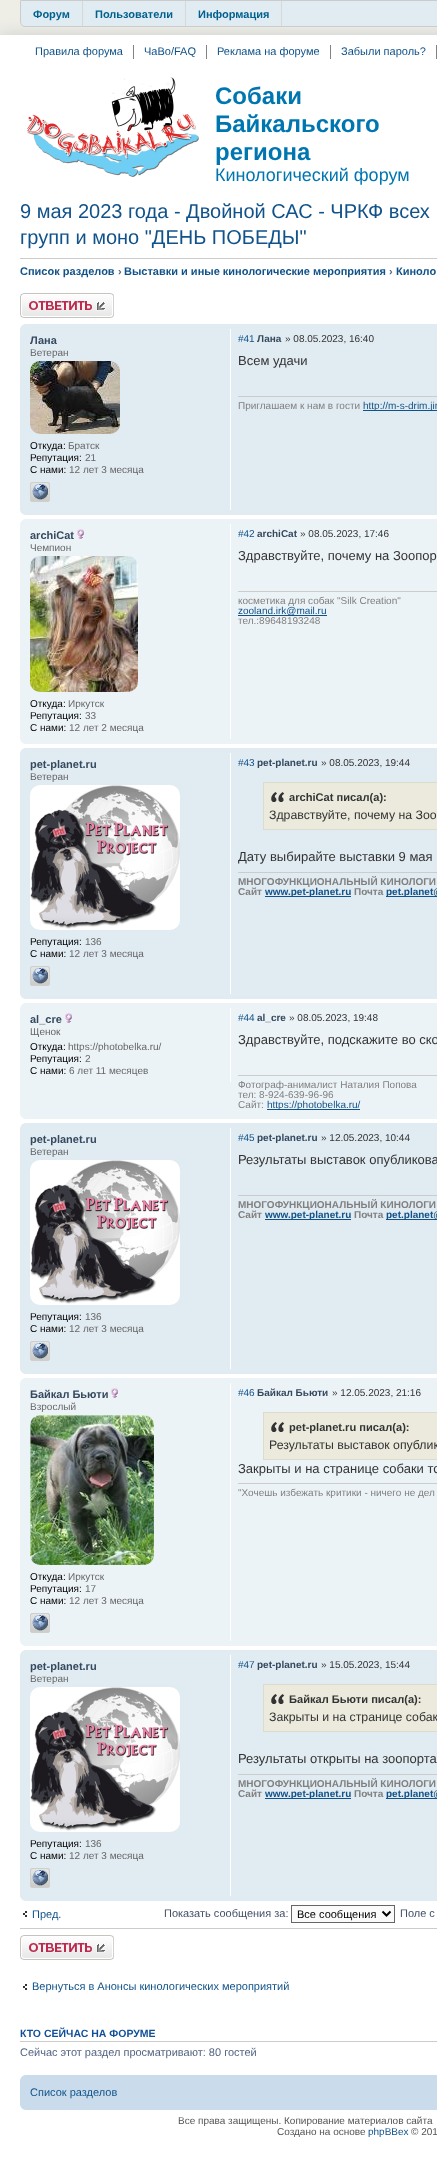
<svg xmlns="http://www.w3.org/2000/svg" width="437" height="2176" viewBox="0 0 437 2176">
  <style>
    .t1 { font: bold 11px Liberation Sans; fill: #00608f; }
    .t2 { font: 11px Liberation Sans; fill: #105289; }
    .t3 { font: bold 24px Liberation Sans; fill: #0076b1; }
    .t4 { font: 18px Liberation Sans; fill: #0076b1; }
    .t5 { font: 20px Liberation Sans; fill: #105289; }
    .t6 { font: bold 11px Liberation Sans; fill: #105289; }
    .t7 { font: bold 11px Liberation Sans; fill: #536482; }
    .t8 { font: bold 11px Liberation Sans; fill: #34495e; }
    .t9 { font: 10px Liberation Sans; fill: #666; }
    .t10 { font: 10px Liberation Sans; fill: #000; }
    .t11 { font: 10px Liberation Sans; fill: #105289; }
    .t12 { font: bold 10px Liberation Sans; fill: #34495e; }
    .t13 { font: 10px Liberation Sans; fill: #333; }
    .t14 { font: 13px Liberation Sans; fill: #333; }
    .t15 { font: 10px Liberation Sans; fill: #808080; }
    .t16 { font: bold 11.1px Liberation Sans; fill: #333; }
    .t17 { font: 12.3px Liberation Sans; fill: #333; }
    .t18 { font: bold 10px Liberation Sans; fill: #808080; }
    .t19 { font: bold 10px Liberation Sans; fill: #105289; }
    .t20 { font: 11px Liberation Sans; fill: #425067; }
    .t21 { font: 11px Liberation Sans; fill: #000; }
    .t22 { font: bold 10.5px Liberation Sans; fill: #115098; }
    .t23 { font: 11px Liberation Sans; fill: #536482; }
    .t24 { font: 10px Liberation Sans; fill: #555; }
  </style>
  <rect width="100%" height="100%" fill="#eeeee7"/>
  <rect x="0" y="35" width="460" height="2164" fill="#ccc" filter="blur(7.5px)"/>
  <rect x="0" y="35" width="437" height="2141" fill="#fff"/>
  <path d="M20.5 .5H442.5V22C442.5 24.5 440.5 26.5 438 26.5H25C22.5 26.5 20.5 24.5 20.5 22Z" fill="#e1ebf2" stroke="#ccc"/>
  <rect x="82" y="1" width="1" height="25" fill="#d8d8d8"/>
  <text x="33" y="18" class="t1">Форум</text>
  <rect x="185" y="1" width="1" height="25" fill="#d8d8d8"/>
  <text x="95" y="18" class="t1">Пользователи</text>
  <rect x="281" y="1" width="1" height="25" fill="#d8d8d8"/>
  <text x="198" y="18" class="t1">Информация</text>
  <rect x="133" y="45" width="1" height="14" fill="#828282"/>
  <text x="35" y="55" class="t2">Правила форума</text>
  <rect x="206" y="45" width="1" height="14" fill="#828282"/>
  <text x="144" y="55" class="t2">ЧаВо/FAQ</text>
  <rect x="330" y="45" width="1" height="14" fill="#828282"/>
  <text x="217" y="55" class="t2">Реклама на форуме</text>
  <rect x="436" y="45" width="1" height="14" fill="#828282"/>
  <text x="341" y="55" class="t2">Забыли пароль?</text>
  <image x="26" y="77" width="173" height="100" href="images/1.png"/>
  <text x="215" y="104" class="t3">Собаки</text>
  <text x="215" y="132" class="t3">Байкальского</text>
  <text x="215" y="160" class="t3">региона</text>
  <text x="215" y="181" class="t4">Кинологический форум</text>
  <rect x="20" y="258" width="417" height="1" fill="#ccc"/>
  <text x="20" y="218" class="t5">9 мая 2023 года - Двойной САС - ЧРКФ всех</text>
  <text x="20" y="244" class="t5">групп и моно "ДЕНЬ ПОБЕДЫ"</text>
  <text x="20" y="275" class="t6">Список разделов</text>
  <text x="118" y="275" class="t7">›</text>
  <text x="124" y="275" class="t6">Выставки и иные кинологические мероприятия</text>
  <text x="389" y="275" class="t7">›</text>
  <text x="396" y="275" class="t6">Киноло</text>
  <image x="20" y="293" width="94" height="25" href="images/2.png"/>
  <rect x="20" y="324" width="417" height="191" fill="#e1ebf2"/>
  <image x="20" y="324" width="5" height="5" href="images/3.png"/>
  <rect x="230" y="329" width="1" height="181" fill="#fff"/>
  <text x="30" y="344" class="t8">Лана</text>
  <text x="30" y="356" class="t9">Ветеран</text>
  <image x="30" y="361" width="90" height="73" href="images/4.png"/>
  <text x="30" y="449" class="t10">Откуда:</text>
  <text x="68" y="449" class="t9">Братск</text>
  <text x="30" y="461" class="t10">Репутация:</text>
  <text x="85" y="461" class="t9">21</text>
  <text x="30" y="473" class="t10">С нами:</text>
  <text x="69" y="473" class="t9">12 лет 3 месяца</text>
  <image x="30" y="482" width="20" height="20" href="images/5.png"/>
  <text x="238" y="342" class="t11">#41</text>
  <text x="257" y="342" class="t12">Лана</text>
  <text x="285" y="342" class="t13">» 08.05.2023, 16:40</text>
  <text x="238" y="365" class="t14">Всем удачи</text>
  <rect x="238" y="396" width="199" height="1" fill="#ccc"/>
  <text x="238" y="409" class="t15">Приглашаем к нам в гости</text>
  <rect x="363" y="410" width="74" height="1" fill="#105289"/>
  <text x="363" y="409" class="t11">http://m-s-drim.jim</text>
  <image x="20" y="510" width="5" height="5" href="images/6.png"/>
  <rect x="20" y="519" width="417" height="225" fill="#ecf3f7"/>
  <image x="20" y="519" width="5" height="5" href="images/7.png"/>
  <rect x="230" y="524" width="1" height="215" fill="#fff"/>
  <text x="30" y="539" class="t8">archiCat</text>
  <image x="77" y="529" width="7" height="10" href="images/8.png"/>
  <text x="30" y="551" class="t9">Чемпион</text>
  <image x="30" y="556" width="108" height="136" href="images/9.png"/>
  <text x="30" y="707" class="t10">Откуда:</text>
  <text x="68" y="707" class="t9">Иркутск</text>
  <text x="30" y="719" class="t10">Репутация:</text>
  <text x="85" y="719" class="t9">33</text>
  <text x="30" y="731" class="t10">С нами:</text>
  <text x="69" y="731" class="t9">12 лет 2 месяца</text>
  <text x="238" y="537" class="t11">#42</text>
  <text x="257" y="537" class="t12">archiCat</text>
  <text x="300" y="537" class="t13">» 08.05.2023, 17:46</text>
  <text x="238" y="560" class="t14">Здравствуйте, почему на Зоопор</text>
  <rect x="238" y="591" width="199" height="1" fill="#ccc"/>
  <text x="238" y="604" class="t15">косметика для собак "Silk Creation"</text>
  <rect x="238" y="615" width="89" height="1" fill="#105289"/>
  <text x="238" y="614" class="t11">zooland.irk@mail.ru</text>
  <text x="238" y="624" class="t15">тел.:89648193248</text>
  <image x="20" y="739" width="5" height="5" href="images/10.png"/>
  <rect x="20" y="748" width="417" height="251" fill="#e1ebf2"/>
  <image x="20" y="748" width="5" height="5" href="images/3.png"/>
  <rect x="230" y="753" width="1" height="241" fill="#fff"/>
  <text x="30" y="768" class="t8">pet-planet.ru</text>
  <text x="30" y="780" class="t9">Ветеран</text>
  <image x="30" y="785" width="150" height="145" href="images/11.png"/>
  <text x="30" y="945" class="t10">Репутация:</text>
  <text x="85" y="945" class="t9">136</text>
  <text x="30" y="957" class="t10">С нами:</text>
  <text x="69" y="957" class="t9">12 лет 3 месяца</text>
  <image x="30" y="966" width="20" height="20" href="images/5.png"/>
  <text x="238" y="766" class="t11">#43</text>
  <text x="257" y="766" class="t12">pet-planet.ru</text>
  <text x="321" y="766" class="t13">» 08.05.2023, 19:44</text>
  <rect x="264" y="783" width="173" height="46" fill="#ebeadd"/>
  <image x="271" y="792" width="14" height="10" href="images/12.png"/>
  <rect x="263.5" y="782.5" width="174" height="47" fill="none" stroke="#dbdbce"/>
  <text x="289" y="801" class="t16">archiCat писал(а):</text>
  <text x="269" y="819" class="t17">Здравствуйте, почему на Зоо</text>
  <text x="238" y="861" class="t14">Дату выбирайте выставки 9 мая</text>
  <rect x="238" y="872" width="199" height="1" fill="#ccc"/>
  <text x="238" y="885" class="t18">МНОГОФУНКЦИОНАЛЬНЫЙ КИНОЛОГИ</text>
  <text x="238" y="895" class="t18">Сайт</text>
  <rect x="265" y="896" width="86" height="1" fill="#105289"/>
  <text x="265" y="895" class="t19">www.pet-planet.ru</text>
  <text x="354" y="895" class="t18">Почта</text>
  <rect x="386" y="896" width="51" height="1" fill="#105289"/>
  <text x="386" y="895" class="t19">pet.planet@</text>
  <image x="20" y="994" width="5" height="5" href="images/6.png"/>
  <rect x="20" y="1003" width="417" height="116" fill="#ecf3f7"/>
  <image x="20" y="1003" width="5" height="5" href="images/7.png"/>
  <rect x="230" y="1008" width="1" height="74" fill="#fff"/>
  <text x="30" y="1023" class="t8">al_cre</text>
  <image x="65" y="1013" width="7" height="10" href="images/8.png"/>
  <text x="30" y="1035" class="t9">Щенок</text>
  <text x="30" y="1050" class="t10">Откуда:</text>
  <text x="68" y="1050" class="t9">https://photobelka.ru/</text>
  <text x="30" y="1062" class="t10">Репутация:</text>
  <text x="85" y="1062" class="t9">2</text>
  <text x="30" y="1074" class="t10">С нами:</text>
  <text x="69" y="1074" class="t9">6 лет 11 месяцев</text>
  <text x="238" y="1021" class="t11">#44</text>
  <text x="257" y="1021" class="t12">al_cre</text>
  <text x="289" y="1021" class="t13">» 08.05.2023, 19:48</text>
  <text x="238" y="1044" class="t14">Здравствуйте, подскажите во ско</text>
  <rect x="238" y="1075" width="199" height="1" fill="#ccc"/>
  <text x="238" y="1088" class="t15">Фотограф-анималист Наталия Попова</text>
  <text x="238" y="1098" class="t15">тел: 8-924-639-96-96</text>
  <text x="238" y="1108" class="t15">Сайт:</text>
  <rect x="267" y="1109" width="93" height="1" fill="#105289"/>
  <text x="267" y="1108" class="t11">https://photobelka.ru/</text>
  <image x="20" y="1114" width="5" height="5" href="images/10.png"/>
  <rect x="20" y="1123" width="417" height="251" fill="#e1ebf2"/>
  <image x="20" y="1123" width="5" height="5" href="images/3.png"/>
  <rect x="230" y="1128" width="1" height="241" fill="#fff"/>
  <text x="30" y="1143" class="t8">pet-planet.ru</text>
  <text x="30" y="1155" class="t9">Ветеран</text>
  <image x="30" y="1160" width="150" height="145" href="images/13.png"/>
  <text x="30" y="1320" class="t10">Репутация:</text>
  <text x="85" y="1320" class="t9">136</text>
  <text x="30" y="1332" class="t10">С нами:</text>
  <text x="69" y="1332" class="t9">12 лет 3 месяца</text>
  <image x="30" y="1341" width="20" height="20" href="images/5.png"/>
  <text x="238" y="1141" class="t11">#45</text>
  <text x="257" y="1141" class="t12">pet-planet.ru</text>
  <text x="321" y="1141" class="t13">» 12.05.2023, 10:44</text>
  <text x="238" y="1164" class="t14">Результаты выставок опубликова</text>
  <rect x="238" y="1195" width="199" height="1" fill="#ccc"/>
  <text x="238" y="1208" class="t18">МНОГОФУНКЦИОНАЛЬНЫЙ КИНОЛОГИ</text>
  <text x="238" y="1218" class="t18">Сайт</text>
  <rect x="265" y="1219" width="86" height="1" fill="#105289"/>
  <text x="265" y="1218" class="t19">www.pet-planet.ru</text>
  <text x="354" y="1218" class="t18">Почта</text>
  <rect x="386" y="1219" width="51" height="1" fill="#105289"/>
  <text x="386" y="1218" class="t19">pet.planet@</text>
  <image x="20" y="1369" width="5" height="5" href="images/6.png"/>
  <rect x="20" y="1378" width="417" height="268" fill="#ecf3f7"/>
  <image x="20" y="1378" width="5" height="5" href="images/7.png"/>
  <rect x="230" y="1383" width="1" height="258" fill="#fff"/>
  <text x="30" y="1398" class="t8">Байкал Бьюти</text>
  <image x="111" y="1388" width="7" height="10" href="images/8.png"/>
  <text x="30" y="1410" class="t9">Взрослый</text>
  <image x="30" y="1415" width="124" height="150" href="images/14.png"/>
  <text x="30" y="1580" class="t10">Откуда:</text>
  <text x="68" y="1580" class="t9">Иркутск</text>
  <text x="30" y="1592" class="t10">Репутация:</text>
  <text x="85" y="1592" class="t9">17</text>
  <text x="30" y="1604" class="t10">С нами:</text>
  <text x="69" y="1604" class="t9">12 лет 3 месяца</text>
  <image x="30" y="1613" width="20" height="20" href="images/15.png"/>
  <text x="238" y="1396" class="t11">#46</text>
  <text x="257" y="1396" class="t12">Байкал Бьюти</text>
  <text x="332" y="1396" class="t13">» 12.05.2023, 21:16</text>
  <rect x="264" y="1413" width="173" height="46" fill="#ebeadd"/>
  <image x="271" y="1422" width="14" height="10" href="images/12.png"/>
  <rect x="263.5" y="1412.5" width="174" height="47" fill="none" stroke="#dbdbce"/>
  <text x="289" y="1431" class="t16">pet-planet.ru писал(а):</text>
  <text x="269" y="1449" class="t17">Результаты выставок опублик</text>
  <text x="238" y="1473" class="t14">Закрыты и на странице собаки то</text>
  <rect x="238" y="1483" width="199" height="1" fill="#ccc"/>
  <text x="238" y="1496" class="t15">"Хочешь избежать критики - ничего не дел</text>
  <image x="20" y="1641" width="5" height="5" href="images/10.png"/>
  <rect x="20" y="1650" width="417" height="251" fill="#e1ebf2"/>
  <image x="20" y="1650" width="5" height="5" href="images/3.png"/>
  <rect x="230" y="1655" width="1" height="241" fill="#fff"/>
  <text x="30" y="1670" class="t8">pet-planet.ru</text>
  <text x="30" y="1682" class="t9">Ветеран</text>
  <image x="30" y="1687" width="150" height="145" href="images/13.png"/>
  <text x="30" y="1847" class="t10">Репутация:</text>
  <text x="85" y="1847" class="t9">136</text>
  <text x="30" y="1859" class="t10">С нами:</text>
  <text x="69" y="1859" class="t9">12 лет 3 месяца</text>
  <image x="30" y="1868" width="20" height="20" href="images/5.png"/>
  <text x="238" y="1668" class="t11">#47</text>
  <text x="257" y="1668" class="t12">pet-planet.ru</text>
  <text x="321" y="1668" class="t13">» 15.05.2023, 15:44</text>
  <rect x="264" y="1685" width="173" height="46" fill="#ebeadd"/>
  <image x="271" y="1694" width="14" height="10" href="images/12.png"/>
  <rect x="263.5" y="1684.5" width="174" height="47" fill="none" stroke="#dbdbce"/>
  <text x="289" y="1703" class="t16">Байкал Бьюти писал(а):</text>
  <text x="269" y="1721" class="t17">Закрыты и на странице собак</text>
  <text x="238" y="1763" class="t14">Результаты открыты на зоопорта</text>
  <rect x="238" y="1774" width="199" height="1" fill="#ccc"/>
  <text x="238" y="1787" class="t18">МНОГОФУНКЦИОНАЛЬНЫЙ КИНОЛОГИ</text>
  <text x="238" y="1797" class="t18">Сайт</text>
  <rect x="265" y="1798" width="86" height="1" fill="#105289"/>
  <text x="265" y="1797" class="t19">www.pet-planet.ru</text>
  <text x="354" y="1797" class="t18">Почта</text>
  <rect x="386" y="1798" width="51" height="1" fill="#105289"/>
  <text x="386" y="1797" class="t19">pet.planet@</text>
  <image x="20" y="1896" width="5" height="5" href="images/6.png"/>
  <image x="23" y="1911" width="4" height="6" href="images/16.png"/>
  <text x="32" y="1918" class="t2">Пред.</text>
  <text x="164" y="1917" class="t20">Показать сообщения за:</text>
  <rect x="291.5" y="1905.5" width="103" height="17" fill="#fafafa" stroke="#666"/>
  <path d="M382.5 1911.5L386.5 1915.5L390.5 1911.5" fill="none" stroke="#000" stroke-width="2"/>
  <text x="297" y="1918" class="t21">Все сообщения</text>
  <text x="400" y="1917" class="t20">Поле с</text>
  <rect x="20" y="1928" width="417" height="1" fill="#ccc"/>
  <image x="20" y="1935" width="94" height="25" href="images/2.png"/>
  <image x="23" y="1984" width="4" height="6" href="images/16.png"/>
  <text x="32" y="1990" class="t2">Вернуться в Анонсы кинологических мероприятий</text>
  <rect x="20" y="2041" width="417" height="1" fill="#ccc"/>
  <text x="20" y="2037" class="t22">КТО СЕЙЧАС НА ФОРУМЕ</text>
  <text x="20" y="2056" class="t23">Сейчас этот раздел просматривают: 80 гостей</text>
  <rect x="20" y="2075" width="417" height="35" fill="#cadceb"/>
  <image x="20" y="2075" width="5" height="5" href="images/17.png"/>
  <text x="30" y="2096" class="t2">Список разделов</text>
  <image x="20" y="2105" width="5" height="5" href="images/18.png"/>
  <text x="178" y="2124" class="t24">Все права защищены. Копирование материалов сайта</text>
  <text x="277" y="2135" class="t24">Создано на основе</text>
  <text x="368" y="2135" class="t11">phpBBex</text>
  <text x="411" y="2135" class="t24">© 201</text>
</svg>
